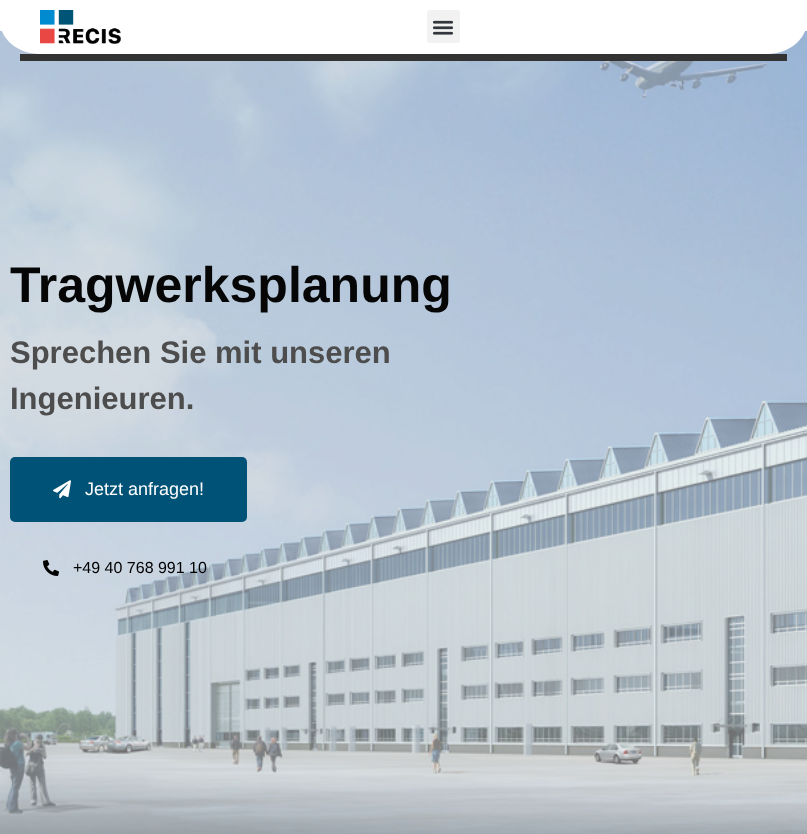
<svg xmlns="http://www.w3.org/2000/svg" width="807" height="834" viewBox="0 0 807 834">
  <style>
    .t1 { font: bold 50px Liberation Sans; fill: #060606; }
    .t2 { font: bold 31px Liberation Sans; fill: #4d4d4d; }
    .t3 { font: 18px Liberation Sans; fill: #fff; }
    .t4 { font: 16px Liberation Sans; fill: #000; }
  </style>
  <rect width="100%" height="100%" fill="#fff"/>
  <image x="0" y="31" width="807" height="803" href="images/3.png"/>
  <path d="M0 0H807V21C807 39 789 54 767 54H40C18 54 0 39 0 21Z" fill="#fff"/>
  <rect x="20" y="54" width="767" height="7" fill="#333"/>
  <image x="40" y="10" width="81" height="34" href="images/1.png"/>
  <rect x="427" y="10" width="33" height="33" rx="3" fill="#f2f2f2"/>
  <image x="432" y="20" width="22" height="15" href="images/2.png"/>
  <text x="10" y="302" class="t1">Tragwerksplanung</text>
  <text x="10" y="363" class="t2">Sprechen Sie mit unseren</text>
  <text x="10" y="409" class="t2">Ingenieuren.</text>
  <rect x="10" y="457" width="237" height="65" rx="5" fill="#005376"/>
  <image x="53" y="480" width="18" height="19" href="images/4.png"/>
  <text x="85" y="495" class="t3">Jetzt anfragen!</text>
  <image x="43" y="560" width="16" height="16" href="images/5.png"/>
  <text x="73" y="573" class="t4">+49 40 768 991 10</text>
</svg>
